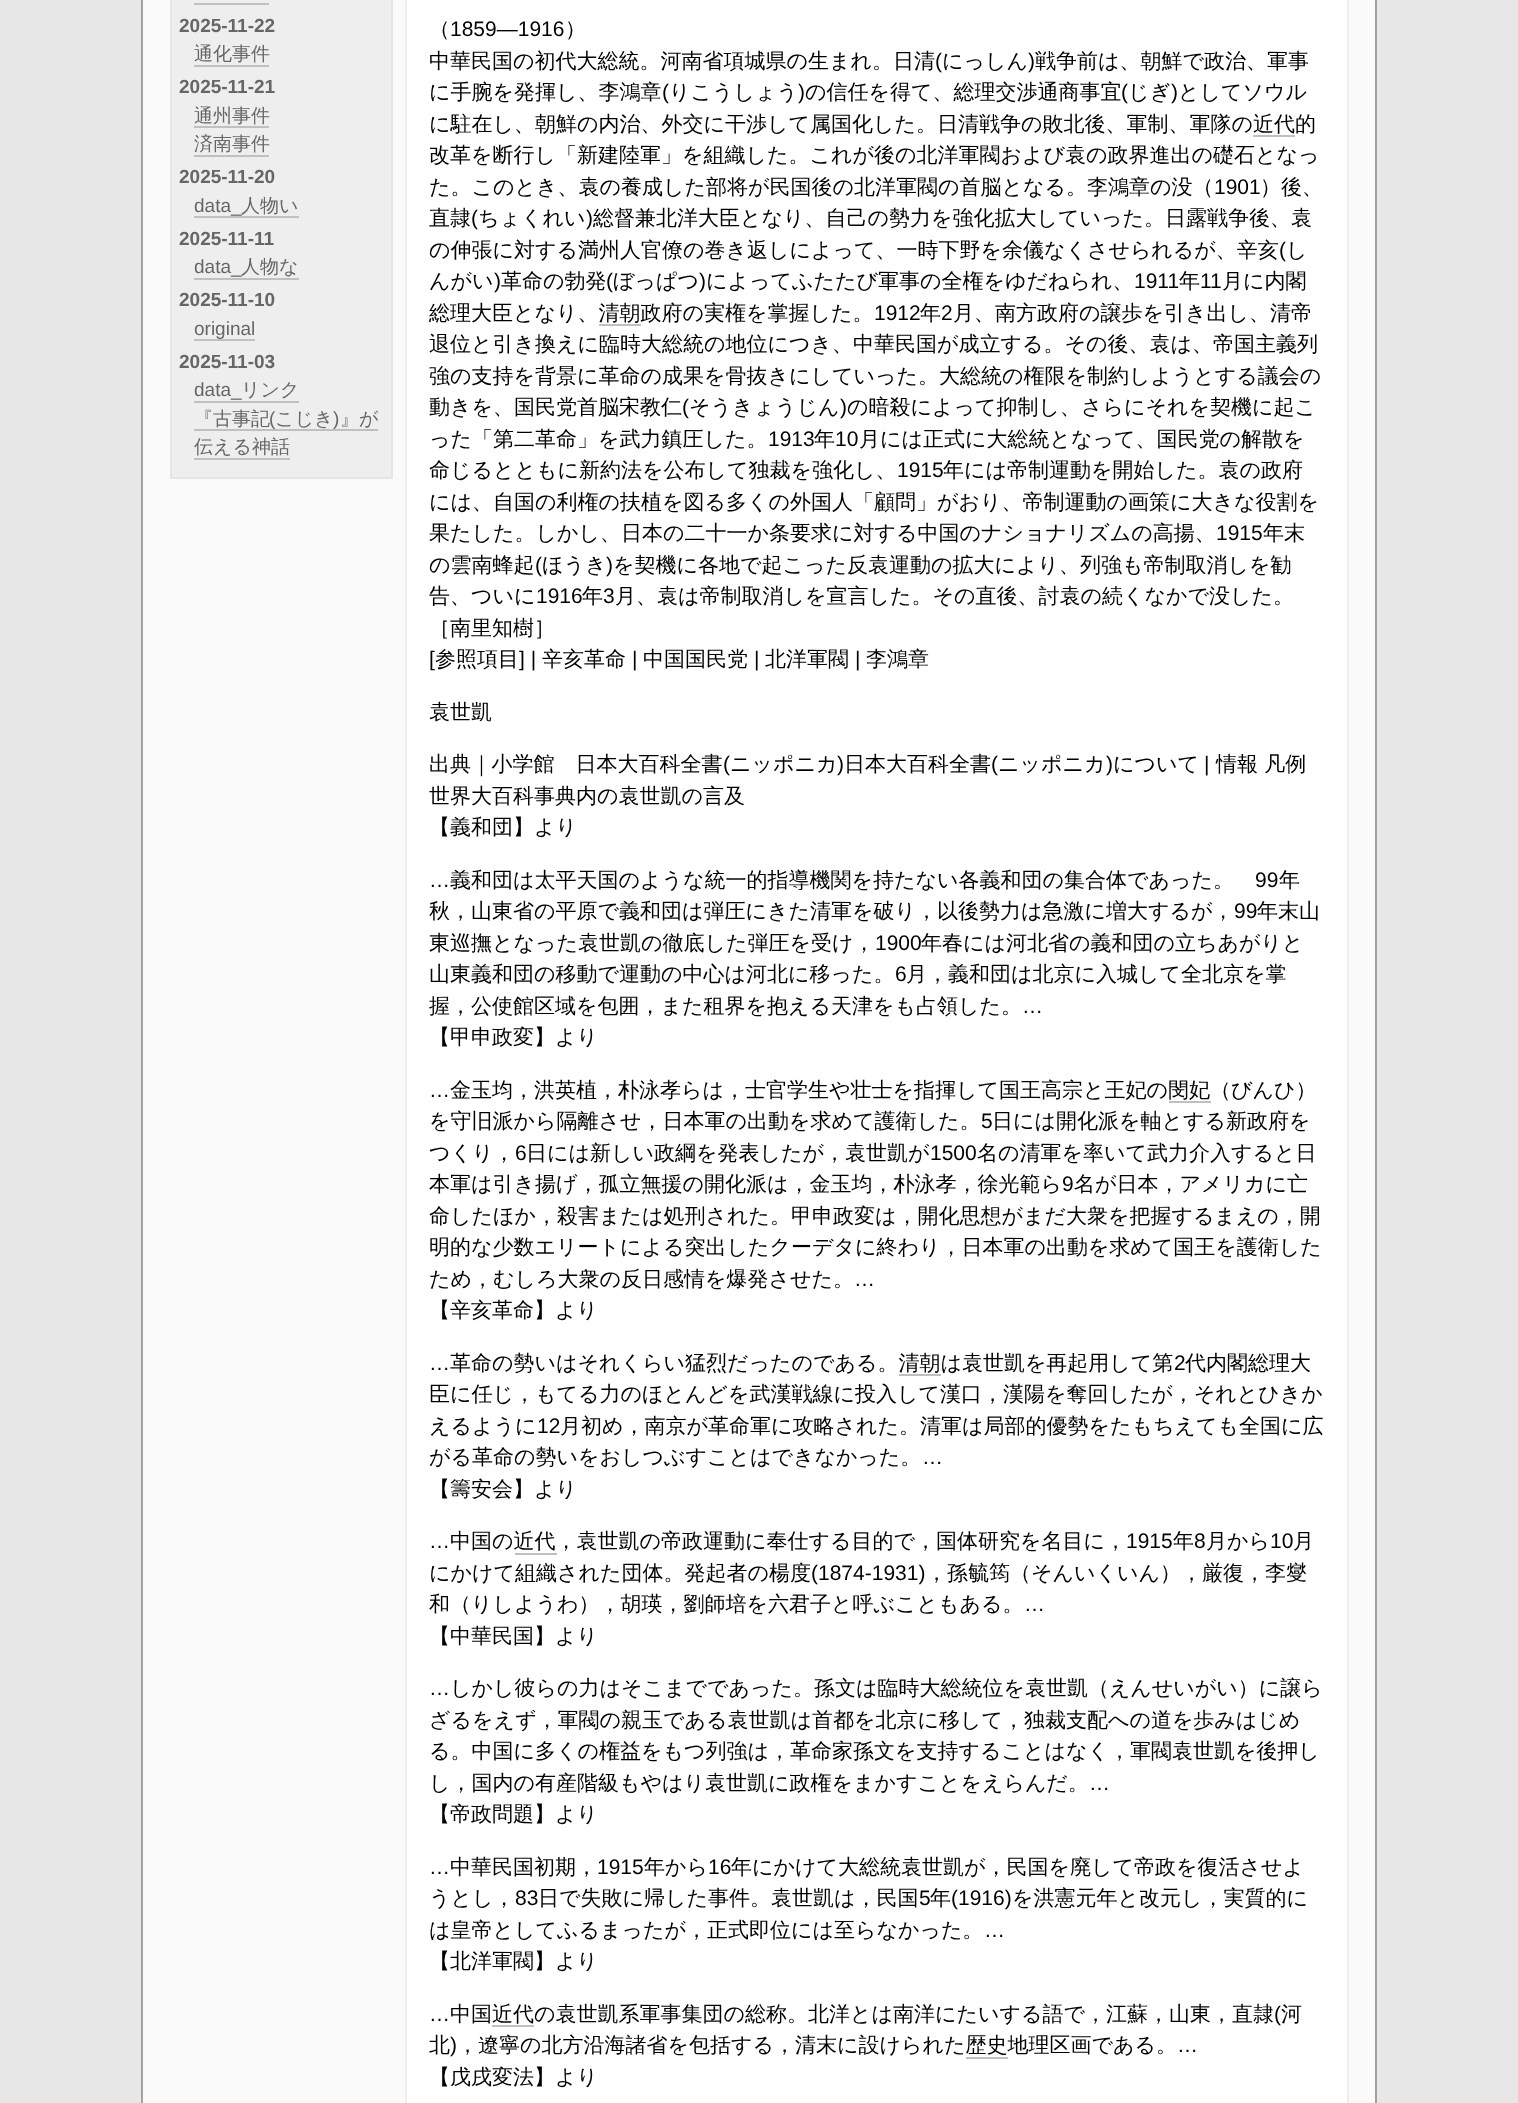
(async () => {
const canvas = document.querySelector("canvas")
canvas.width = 1518
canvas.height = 2103
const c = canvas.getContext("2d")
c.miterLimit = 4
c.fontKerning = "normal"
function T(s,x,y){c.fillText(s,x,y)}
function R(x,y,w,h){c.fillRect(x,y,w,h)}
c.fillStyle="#e7e7e7"
R(0,0,1518,2103)
c.fillStyle="#fafafa"
c.beginPath()
c.rect(142,-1,1234,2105)
c.fill()
c.strokeStyle="#a1a1a1"
c.lineWidth=2
c.stroke()
c.fillStyle="#eee"
c.beginPath()
c.rect(171,-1,221,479)
c.fill()
c.strokeStyle="#e5e5e5"
c.stroke()
c.fillStyle="#c0c0c0"
R(194,3,75,2)
c.font="bold 19px Liberation Sans"
c.fillStyle="#666"
T("2025-11-22",179,32)
c.font="500 19px WenQuanYi Zen Hei"
T("通化事件",194,60)
c.fillStyle="#c0c0c0"
R(194,65,75,2)
c.font="bold 19px Liberation Sans"
c.fillStyle="#666"
T("2025-11-21",179,93)
c.font="500 19px WenQuanYi Zen Hei"
T("通州事件",194,122)
c.fillStyle="#c0c0c0"
R(194,126,75,2)
c.fillStyle="#666"
T("済南事件",194,150)
c.fillStyle="#c0c0c0"
R(194,155,75,2)
c.font="bold 19px Liberation Sans"
c.fillStyle="#666"
T("2025-11-20",179,183)
c.font="19px Liberation Sans"
T("data_",194,212)
c.fillStyle="#c0c0c0"
R(194,216,105,2)
c.font="500 19px WenQuanYi Zen Hei"
c.fillStyle="#666"
T("人物い",241,212)
c.font="bold 19px Liberation Sans"
T("2025-11-11",179,245)
c.font="19px Liberation Sans"
T("data_",194,273)
c.fillStyle="#c0c0c0"
R(194,278,105,2)
c.font="500 19px WenQuanYi Zen Hei"
c.fillStyle="#666"
T("人物な",241,273)
c.font="bold 19px Liberation Sans"
T("2025-11-10",179,306)
c.font="19px Liberation Sans"
T("original",194,335)
c.fillStyle="#c0c0c0"
R(194,339,61,2)
c.font="bold 19px Liberation Sans"
c.fillStyle="#666"
T("2025-11-03",179,368)
c.font="19px Liberation Sans"
T("data_",194,396)
c.fillStyle="#c0c0c0"
R(194,401,105,2)
c.font="500 19px WenQuanYi Zen Hei"
c.fillStyle="#666"
T("リンク",241,396)
T("『古事記",194,425)
c.font="19px Liberation Sans"
T("(",269,425)
c.fillStyle="#c0c0c0"
R(194,429,184,2)
c.font="500 19px WenQuanYi Zen Hei"
c.fillStyle="#666"
T("こじき",275,425)
c.font="19px Liberation Sans"
T(")",333,425)
c.font="500 19px WenQuanYi Zen Hei"
T("』が",340,425)
T("伝える神話",194,453)
c.fillStyle="#c0c0c0"
R(194,458,96,2)
c.fillStyle="#fff"
c.beginPath()
c.rect(406,-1,942,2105)
c.fill()
c.strokeStyle="#eee"
c.stroke()
c.font="500 21px WenQuanYi Zen Hei"
c.fillStyle="#000"
T("（",429,36)
c.font="21px Liberation Sans"
T("1859―1916",450,36)
c.font="500 21px WenQuanYi Zen Hei"
T("）",565,36)
T("中華民国の初代大総統。河南省項城県の生まれ。日清",429,68)
c.font="21px Liberation Sans"
T("(",935,68)
c.font="500 21px WenQuanYi Zen Hei"
T("にっしん",942,68)
c.font="21px Liberation Sans"
T(")",1028,68)
c.font="500 21px WenQuanYi Zen Hei"
T("戦争前は、朝鮮で政治、軍事",1035,68)
T("に手腕を発揮し、李鴻章",429,99)
c.font="21px Liberation Sans"
T("(",662,99)
c.font="500 21px WenQuanYi Zen Hei"
T("りこうしょう",669,99)
c.font="21px Liberation Sans"
T(")",798,99)
c.font="500 21px WenQuanYi Zen Hei"
T("の信任を得て、総理交渉通商事宜",805,99)
c.font="21px Liberation Sans"
T("(",1121,99)
c.font="500 21px WenQuanYi Zen Hei"
T("じぎ",1128,99)
c.font="21px Liberation Sans"
T(")",1171,99)
c.font="500 21px WenQuanYi Zen Hei"
T("としてソウル",1178,99)
T("に駐在し、朝鮮の内治、外交に干渉して属国化した。日清戦争の敗北後、軍制、軍隊の近代的",429,131)
c.fillStyle="#c0c0c0"
R(1253,135,42,2)
c.fillStyle="#000"
T("改革を断行し「新建陸軍」を組織した。これが後の北洋軍閥および袁の政界進出の礎石となっ",429,162)
T("た。このとき、袁の養成した部将が民国後の北洋軍閥の首脳となる。李鴻章の没（",429,194)
c.font="21px Liberation Sans"
T("1901",1214,194)
c.font="500 21px WenQuanYi Zen Hei"
T("）後、",1260,194)
T("直隷",429,225)
c.font="21px Liberation Sans"
T("(",471,225)
c.font="500 21px WenQuanYi Zen Hei"
T("ちょくれい",478,225)
c.font="21px Liberation Sans"
T(")",586,225)
c.font="500 21px WenQuanYi Zen Hei"
T("総督兼北洋大臣となり、自己の勢力を強化拡大していった。日露戦争後、袁",593,225)
T("の伸張に対する満州人官僚の巻き返しによって、一時下野を余儀なくさせられるが、辛亥",429,257)
c.font="21px Liberation Sans"
T("(",1279,257)
c.font="500 21px WenQuanYi Zen Hei"
T("し",1286,257)
T("んがい",429,288)
c.font="21px Liberation Sans"
T(")",494,288)
c.font="500 21px WenQuanYi Zen Hei"
T("革命の勃発",501,288)
c.font="21px Liberation Sans"
T("(",606,288)
c.font="500 21px WenQuanYi Zen Hei"
T("ぼっぱつ",613,288)
c.font="21px Liberation Sans"
T(")",699,288)
c.font="500 21px WenQuanYi Zen Hei"
T("によってふたたび軍事の全権をゆだねられ、",706,288)
c.font="21px Liberation Sans"
T("1911",1134,288)
c.font="500 21px WenQuanYi Zen Hei"
T("年",1179,288)
c.font="21px Liberation Sans"
T("11",1200,288)
c.font="500 21px WenQuanYi Zen Hei"
T("月に内閣",1222,288)
T("総理大臣となり、清朝政府の実権を掌握した。",429,320)
c.font="21px Liberation Sans"
T("1912",874,320)
c.font="500 21px WenQuanYi Zen Hei"
T("年",920,320)
c.font="21px Liberation Sans"
T("2",941,320)
c.font="500 21px WenQuanYi Zen Hei"
T("月、南方政府の譲歩を引き出し、清帝",953,320)
c.fillStyle="#c0c0c0"
R(599,324,42,2)
c.fillStyle="#000"
T("退位と引き換えに臨時大総統の地位につき、中華民国が成立する。その後、袁は、帝国主義列",429,351)
T("強の支持を背景に革命の成果を骨抜きにしていった。大総統の権限を制約しようとする議会の",429,383)
T("動きを、国民党首脳宋教仁",429,414)
c.font="21px Liberation Sans"
T("(",682,414)
c.font="500 21px WenQuanYi Zen Hei"
T("そうきょうじん",689,414)
c.font="21px Liberation Sans"
T(")",840,414)
c.font="500 21px WenQuanYi Zen Hei"
T("の暗殺によって抑制し、さらにそれを契機に起こ",847,414)
T("った「第二革命」を武力鎮圧した。",429,446)
c.font="21px Liberation Sans"
T("1913",768,446)
c.font="500 21px WenQuanYi Zen Hei"
T("年",814,446)
c.font="21px Liberation Sans"
T("10",835,446)
c.font="500 21px WenQuanYi Zen Hei"
T("月には正式に大総統となって、国民党の解散を",859,446)
T("命じるとともに新約法を公布して独裁を強化し、",429,477)
c.font="21px Liberation Sans"
T("1915",897,477)
c.font="500 21px WenQuanYi Zen Hei"
T("年には帝制運動を開始した。袁の政府",943,477)
T("には、自国の利権の扶植を図る多くの外国人「顧問」がおり、帝制運動の画策に大きな役割を",429,509)
T("果たした。しかし、日本の二十一か条要求に対する中国のナショナリズムの高揚、",429,540)
c.font="21px Liberation Sans"
T("1915",1216,540)
c.font="500 21px WenQuanYi Zen Hei"
T("年末",1263,540)
T("の雲南蜂起",429,572)
c.font="21px Liberation Sans"
T("(",535,572)
c.font="500 21px WenQuanYi Zen Hei"
T("ほうき",542,572)
c.font="21px Liberation Sans"
T(")",606,572)
c.font="500 21px WenQuanYi Zen Hei"
T("を契機に各地で起こった反袁運動の拡大により、列強も帝制取消しを勧",613,572)
T("告、ついに",429,603)
c.font="21px Liberation Sans"
T("1916",536,603)
c.font="500 21px WenQuanYi Zen Hei"
T("年",582,603)
c.font="21px Liberation Sans"
T("3",603,603)
c.font="500 21px WenQuanYi Zen Hei"
T("月、袁は帝制取消しを宣言した。その直後、討袁の続くなかで没した。",615,603)
T("［南里知樹］",429,635)
c.font="21px Liberation Sans"
T("[",429,666)
c.font="500 21px WenQuanYi Zen Hei"
T("参照項目",435,666)
c.font="21px Liberation Sans"
T("] |",519,666)
c.font="500 21px WenQuanYi Zen Hei"
T("辛亥革命",542,666)
c.font="21px Liberation Sans"
T("|",632,666)
c.font="500 21px WenQuanYi Zen Hei"
T("中国国民党",643,666)
c.font="21px Liberation Sans"
T("|",754,666)
c.font="500 21px WenQuanYi Zen Hei"
T("北洋軍閥",765,666)
c.font="21px Liberation Sans"
T("|",855,666)
c.font="500 21px WenQuanYi Zen Hei"
T("李鴻章",866,666)
T("袁世凱",429,719)
T("出典｜小学館　日本大百科全書",429,771)
c.font="21px Liberation Sans"
T("(",723,771)
c.font="500 21px WenQuanYi Zen Hei"
T("ニッポニカ",730,771)
c.font="21px Liberation Sans"
T(")",837,771)
c.font="500 21px WenQuanYi Zen Hei"
T("日本大百科全書",844,771)
c.font="21px Liberation Sans"
T("(",991,771)
c.font="500 21px WenQuanYi Zen Hei"
T("ニッポニカ",998,771)
c.font="21px Liberation Sans"
T(")",1106,771)
c.font="500 21px WenQuanYi Zen Hei"
T("について",1113,771)
c.font="21px Liberation Sans"
T("|",1204,771)
c.font="500 21px WenQuanYi Zen Hei"
T("情報 凡例",1216,771)
T("世界大百科事典内の袁世凱の言及",429,803)
T("【義和団】より",429,834)
c.font="21px Liberation Sans"
T("…",429,887)
c.font="500 21px WenQuanYi Zen Hei"
T("義和団は太平天国のような統一的指導機関を持たない各義和団の集合体であった。",450,887)
c.font="21px Liberation Sans"
T("99",1255,887)
c.font="500 21px WenQuanYi Zen Hei"
T("年",1279,887)
T("秋，山東省の平原で義和団は弾圧にきた清軍を破り，以後勢力は急激に増大するが，",429,918)
c.font="21px Liberation Sans"
T("99",1234,918)
c.font="500 21px WenQuanYi Zen Hei"
T("年末山",1257,918)
T("東巡撫となった袁世凱の徹底した弾圧を受け，",429,950)
c.font="21px Liberation Sans"
T("1900",875,950)
c.font="500 21px WenQuanYi Zen Hei"
T("年春には河北省の義和団の立ちあがりと",921,950)
T("山東義和団の移動で運動の中心は河北に移った。",429,981)
c.font="21px Liberation Sans"
T("6",895,981)
c.font="500 21px WenQuanYi Zen Hei"
T("月，義和団は北京に入城して全北京を掌",906,981)
T("握，公使館区域を包囲，また租界を抱える天津をも占領した。",429,1013)
c.font="21px Liberation Sans"
T("…",1022,1013)
c.font="500 21px WenQuanYi Zen Hei"
T("【甲申政変】より",429,1044)
c.font="21px Liberation Sans"
T("…",429,1097)
c.font="500 21px WenQuanYi Zen Hei"
T("金玉均，洪英植，朴泳孝らは，士官学生や壮士を指揮して国王高宗と王妃の閔妃（びんひ）",450,1097)
c.fillStyle="#c0c0c0"
R(1169,1101,42,2)
c.fillStyle="#000"
T("を守旧派から隔離させ，日本軍の出動を求めて護衛した。",429,1128)
c.font="21px Liberation Sans"
T("5",981,1128)
c.font="500 21px WenQuanYi Zen Hei"
T("日には開化派を軸とする新政府を",992,1128)
T("つくり，",429,1160)
c.font="21px Liberation Sans"
T("6",515,1160)
c.font="500 21px WenQuanYi Zen Hei"
T("日には新しい政綱を発表したが，袁世凱が",526,1160)
c.font="21px Liberation Sans"
T("1500",930,1160)
c.font="500 21px WenQuanYi Zen Hei"
T("名の清軍を率いて武力介入すると日",977,1160)
T("本軍は引き揚げ，孤立無援の開化派は，金玉均，朴泳孝，徐光範ら",429,1191)
c.font="21px Liberation Sans"
T("9",1062,1191)
c.font="500 21px WenQuanYi Zen Hei"
T("名が日本，アメリカに亡",1074,1191)
T("命したほか，殺害または処刑された。甲申政変は，開化思想がまだ大衆を把握するまえの，開",429,1223)
T("明的な少数エリートによる突出したクーデタに終わり，日本軍の出動を求めて国王を護衛した",429,1254)
T("ため，むしろ大衆の反日感情を爆発させた。",429,1286)
c.font="21px Liberation Sans"
T("…",854,1286)
c.font="500 21px WenQuanYi Zen Hei"
T("【辛亥革命】より",429,1317)
c.font="21px Liberation Sans"
T("…",429,1370)
c.font="500 21px WenQuanYi Zen Hei"
T("革命の勢いはそれくらい猛烈だったのである。清朝は袁世凱を再起用して第",450,1370)
c.font="21px Liberation Sans"
T("2",1174,1370)
c.font="500 21px WenQuanYi Zen Hei"
T("代内閣総理大",1185,1370)
c.fillStyle="#c0c0c0"
R(899,1374,42,2)
c.fillStyle="#000"
T("臣に任じ，もてる力のほとんどを武漢戦線に投入して漢口，漢陽を奪回したが，それとひきか",429,1401)
T("えるように",429,1433)
c.font="21px Liberation Sans"
T("12",537,1433)
c.font="500 21px WenQuanYi Zen Hei"
T("月初め，南京が革命軍に攻略された。清軍は局部的優勢をたもちえても全国に広",560,1433)
T("がる革命の勢いをおしつぶすことはできなかった。",429,1464)
c.font="21px Liberation Sans"
T("…",922,1464)
c.font="500 21px WenQuanYi Zen Hei"
T("【籌安会】より",429,1496)
c.font="21px Liberation Sans"
T("…",429,1548)
c.font="500 21px WenQuanYi Zen Hei"
T("中国の近代，袁世凱の帝政運動に奉仕する目的で，国体研究を名目に，",450,1548)
c.font="21px Liberation Sans"
T("1915",1126,1548)
c.font="500 21px WenQuanYi Zen Hei"
T("年",1173,1548)
c.font="21px Liberation Sans"
T("8",1194,1548)
c.font="500 21px WenQuanYi Zen Hei"
T("月から",1206,1548)
c.font="21px Liberation Sans"
T("10",1270,1548)
c.font="500 21px WenQuanYi Zen Hei"
T("月",1293,1548)
c.fillStyle="#c0c0c0"
R(515,1553,42,2)
c.fillStyle="#000"
T("にかけて組織された団体。発起者の楊度",429,1580)
c.font="21px Liberation Sans"
T("(1874‐1931)",811,1580)
c.font="500 21px WenQuanYi Zen Hei"
T("，孫毓筠（そんいくいん），厳復，李燮",926,1580)
T("和（りしようわ），胡瑛，劉師培を六君子と呼ぶこともある。",429,1611)
c.font="21px Liberation Sans"
T("…",1024,1611)
c.font="500 21px WenQuanYi Zen Hei"
T("【中華民国】より",429,1643)
c.font="21px Liberation Sans"
T("…",429,1695)
c.font="500 21px WenQuanYi Zen Hei"
T("しかし彼らの力はそこまでであった。孫文は臨時大総統位を袁世凱（えんせいがい）に譲ら",450,1695)
T("ざるをえず，軍閥の親玉である袁世凱は首都を北京に移して，独裁支配への道を歩みはじめ",429,1727)
T("る。中国に多くの権益をもつ列強は，革命家孫文を支持することはなく，軍閥袁世凱を後押し",429,1758)
T("し，国内の有産階級もやはり袁世凱に政権をまかすことをえらんだ。",429,1790)
c.font="21px Liberation Sans"
T("…",1089,1790)
c.font="500 21px WenQuanYi Zen Hei"
T("【帝政問題】より",429,1821)
c.font="21px Liberation Sans"
T("…",429,1874)
c.font="500 21px WenQuanYi Zen Hei"
T("中華民国初期，",450,1874)
c.font="21px Liberation Sans"
T("1915",597,1874)
c.font="500 21px WenQuanYi Zen Hei"
T("年から",644,1874)
c.font="21px Liberation Sans"
T("16",708,1874)
c.font="500 21px WenQuanYi Zen Hei"
T("年にかけて大総統袁世凱が，民国を廃して帝政を復活させよ",731,1874)
T("うとし，",429,1905)
c.font="21px Liberation Sans"
T("83",515,1905)
c.font="500 21px WenQuanYi Zen Hei"
T("日で失敗に帰した事件。袁世凱は，民国",538,1905)
c.font="21px Liberation Sans"
T("5",919,1905)
c.font="500 21px WenQuanYi Zen Hei"
T("年",930,1905)
c.font="21px Liberation Sans"
T("(1916)",951,1905)
c.font="500 21px WenQuanYi Zen Hei"
T("を洪憲元年と改元し，実質的に",1012,1905)
T("は皇帝としてふるまったが，正式即位には至らなかった。",429,1937)
c.font="21px Liberation Sans"
T("…",984,1937)
c.font="500 21px WenQuanYi Zen Hei"
T("【北洋軍閥】より",429,1968)
c.font="21px Liberation Sans"
T("…",429,2021)
c.font="500 21px WenQuanYi Zen Hei"
T("中国近代の袁世凱系軍事集団の総称。北洋とは南洋にたいする語で，江蘇，山東，直隷",450,2021)
c.font="21px Liberation Sans"
T("(",1274,2021)
c.font="500 21px WenQuanYi Zen Hei"
T("河",1281,2021)
c.fillStyle="#c0c0c0"
R(492,2025,42,2)
c.fillStyle="#000"
T("北",429,2052)
c.font="21px Liberation Sans"
T(")",450,2052)
c.font="500 21px WenQuanYi Zen Hei"
T("，遼寧の北方沿海諸省を包括する，清末に設けられた歴史地理区画である。",457,2052)
c.font="21px Liberation Sans"
T("…",1177,2052)
c.fillStyle="#c0c0c0"
R(966,2057,42,2)
c.font="500 21px WenQuanYi Zen Hei"
c.fillStyle="#000"
T("【戊戌変法】より",429,2084)
})()
